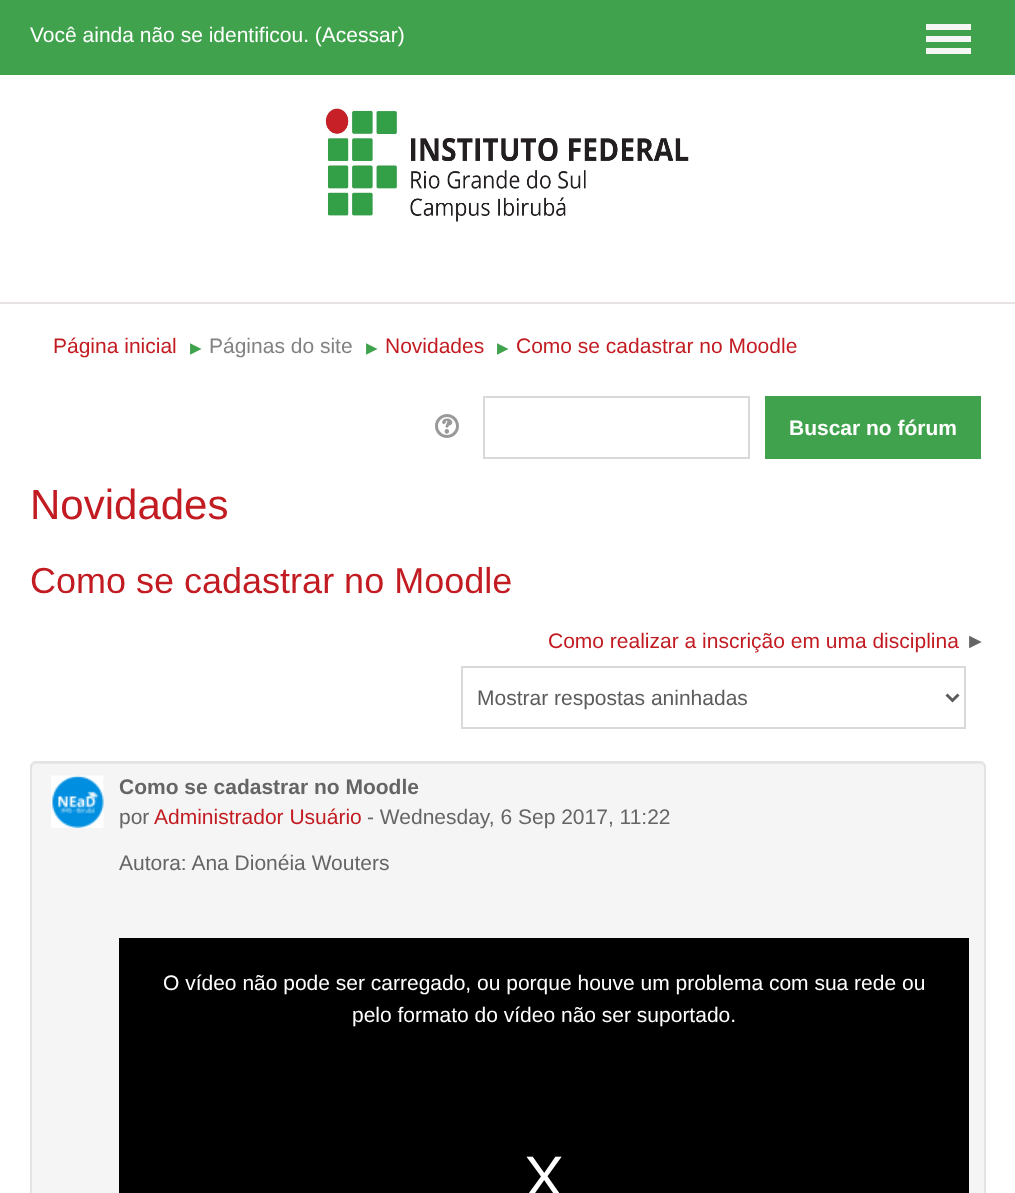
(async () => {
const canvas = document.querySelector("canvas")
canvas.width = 1015
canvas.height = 1193
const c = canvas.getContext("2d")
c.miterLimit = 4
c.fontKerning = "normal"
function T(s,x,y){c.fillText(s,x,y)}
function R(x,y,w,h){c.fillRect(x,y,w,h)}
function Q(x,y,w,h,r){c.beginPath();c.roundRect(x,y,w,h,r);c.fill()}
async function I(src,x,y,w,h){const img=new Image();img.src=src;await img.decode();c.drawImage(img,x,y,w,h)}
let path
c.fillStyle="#fff"
R(0,0,1015,1193)
c.fillStyle="#e8e3e3"
R(0,302,1015,2)
c.fillStyle="#41a24d"
R(0,0,1015,75)
c.font="21px Liberation Sans"
c.fillStyle="#fff"
T("Você ainda não se identificou. (Acessar)",30,42)
c.fillStyle="#f5f5f5"
R(926,24,45,6)
R(926,36,45,6)
R(926,48,45,6)
await I("1.png",325,108,364,114)
c.fillStyle="#c21c22"
T("Página inicial",53,353)
c.font="15px DejaVu Sans"
c.fillStyle="#41a24d"
T("▶︎",190,353)
c.font="21px Liberation Sans"
c.fillStyle="#828282"
T("Páginas do site",209,353)
c.font="15px DejaVu Sans"
c.fillStyle="#41a24d"
T("▶︎",366,353)
c.font="21px Liberation Sans"
c.fillStyle="#c21c22"
T("Novidades",385,353)
c.font="15px DejaVu Sans"
c.fillStyle="#41a24d"
T("▶︎",497,353)
c.font="21px Liberation Sans"
c.fillStyle="#c21c22"
T("Como se cadastrar no Moodle",516,353)
await I("2.png",435,414,24,24)
c.strokeStyle="#d9d9d9"
c.lineWidth=2
c.strokeRect(484,397,265,61)
c.fillStyle="#41a24d"
R(765,396,216,63)
c.font="bold 21px Liberation Sans"
c.fillStyle="#fff"
T("Buscar no fórum",789,435)
c.font="42px Liberation Sans"
c.fillStyle="#c21c22"
T("Novidades",30,519)
c.font="36px Liberation Sans"
T("Como se cadastrar no Moodle",30,593)
c.font="21px Liberation Sans"
T("Como realizar a inscrição em uma disciplina",548,648)
c.fillStyle="#656565"
T("►",965,648)
c.strokeRect(462,667,503,61)
path = new Path2D("M946.5 694.5l6 6l6-6")
c.strokeStyle="#5c5c5c"
c.lineWidth=3
c.stroke(path)
c.fillStyle="#5c5c5c"
T("Mostrar respostas aninhadas",477,705)
c.fillStyle="#f5f5f5"
Q(30,761,956,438,6)
c.fillStyle="#e9e9e9"
path = new Path2D("M36 764h944c2 0 4 2 4 4c0-3-2-6-5-6h-942c-3 0-5 3-5 6c0-2 2-4 4-4z")
c.fill(path)
c.beginPath()
c.roundRect(31,762,954,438,5)
c.strokeStyle="#e3e3e3"
c.lineWidth=2
c.stroke()
await I("3.png",51,775,53,53)
c.font="bold 21px Liberation Sans"
c.fillStyle="#656565"
T("Como se cadastrar no Moodle",119,794)
c.font="21px Liberation Sans"
T("por",119,824)
c.fillStyle="#c21c22"
T("Administrador Usuário",154,824)
c.fillStyle="#656565"
T("- Wednesday, 6 Sep 2017, 11:22",367,824)
T("Autora: Ana Dionéia Wouters",119,870)
c.fillStyle="#000"
R(119,938,850,255)
c.fillStyle="#fff"
T("O vídeo não pode ser carregado, ou porque houve um problema com sua rede ou",163,990)
T("pelo formato do vídeo não ser suportado.",352,1022)
c.font="60px Liberation Sans"
T("X",524,1198)
})()
